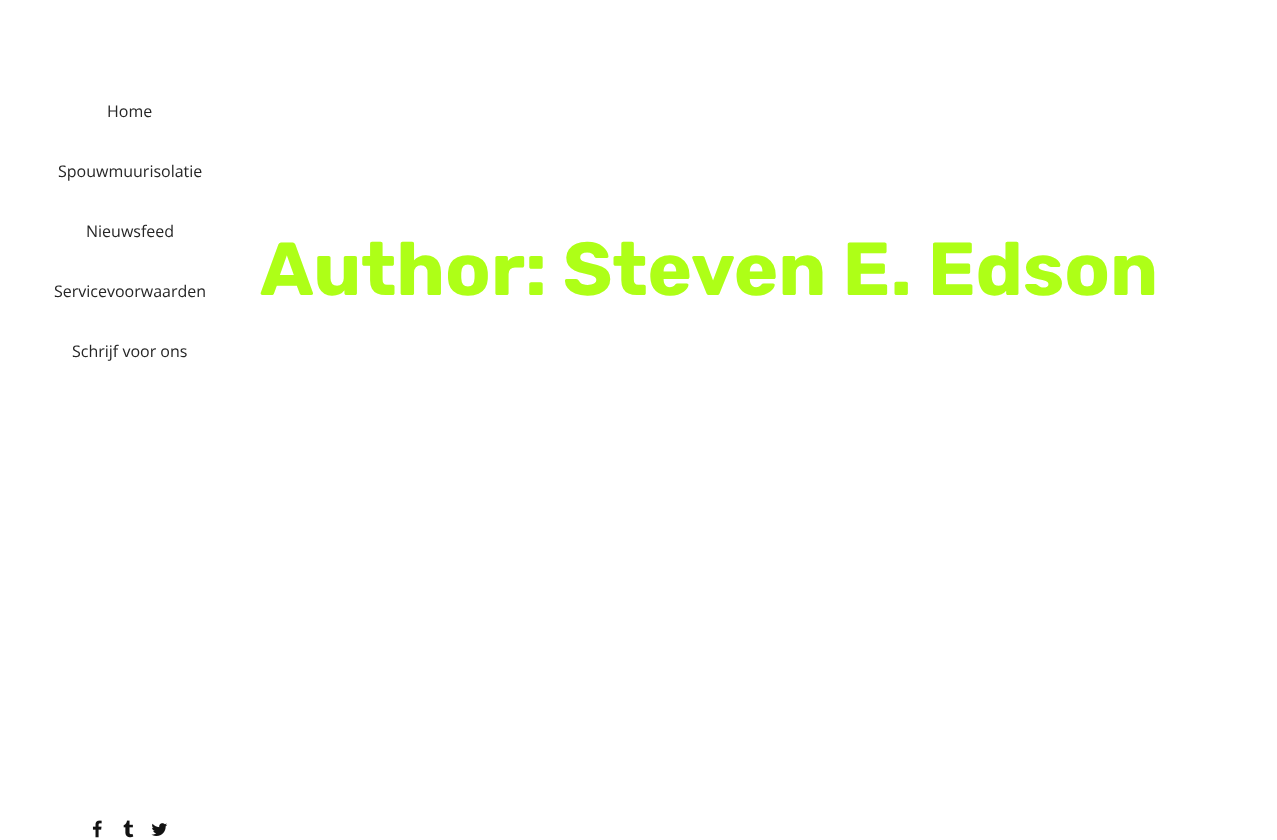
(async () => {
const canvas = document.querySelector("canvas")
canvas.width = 1277
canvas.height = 840
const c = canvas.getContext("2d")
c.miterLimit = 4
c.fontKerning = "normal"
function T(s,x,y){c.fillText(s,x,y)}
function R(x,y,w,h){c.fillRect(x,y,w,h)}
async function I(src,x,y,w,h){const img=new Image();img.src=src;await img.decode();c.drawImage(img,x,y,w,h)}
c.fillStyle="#fff"
R(0,0,1277,840)
c.font="16px Open Sans"
c.fillStyle="#262626"
T("Home",107,117)
T("Spouwmuurisolatie",58,177)
T("Nieuwsfeed",86,237)
T("Servicevoorwaarden",54,297)
T("Schrijf voor ons",72,357)
await I("1.png",92,820,10,18)
await I("2.png",123,820,11,18)
await I("3.png",151,823,17,13)
c.font="bold 75px Rubik"
c.fillStyle="#aeff17"
T("Author: Steven E. Edson",260,295)
})()
